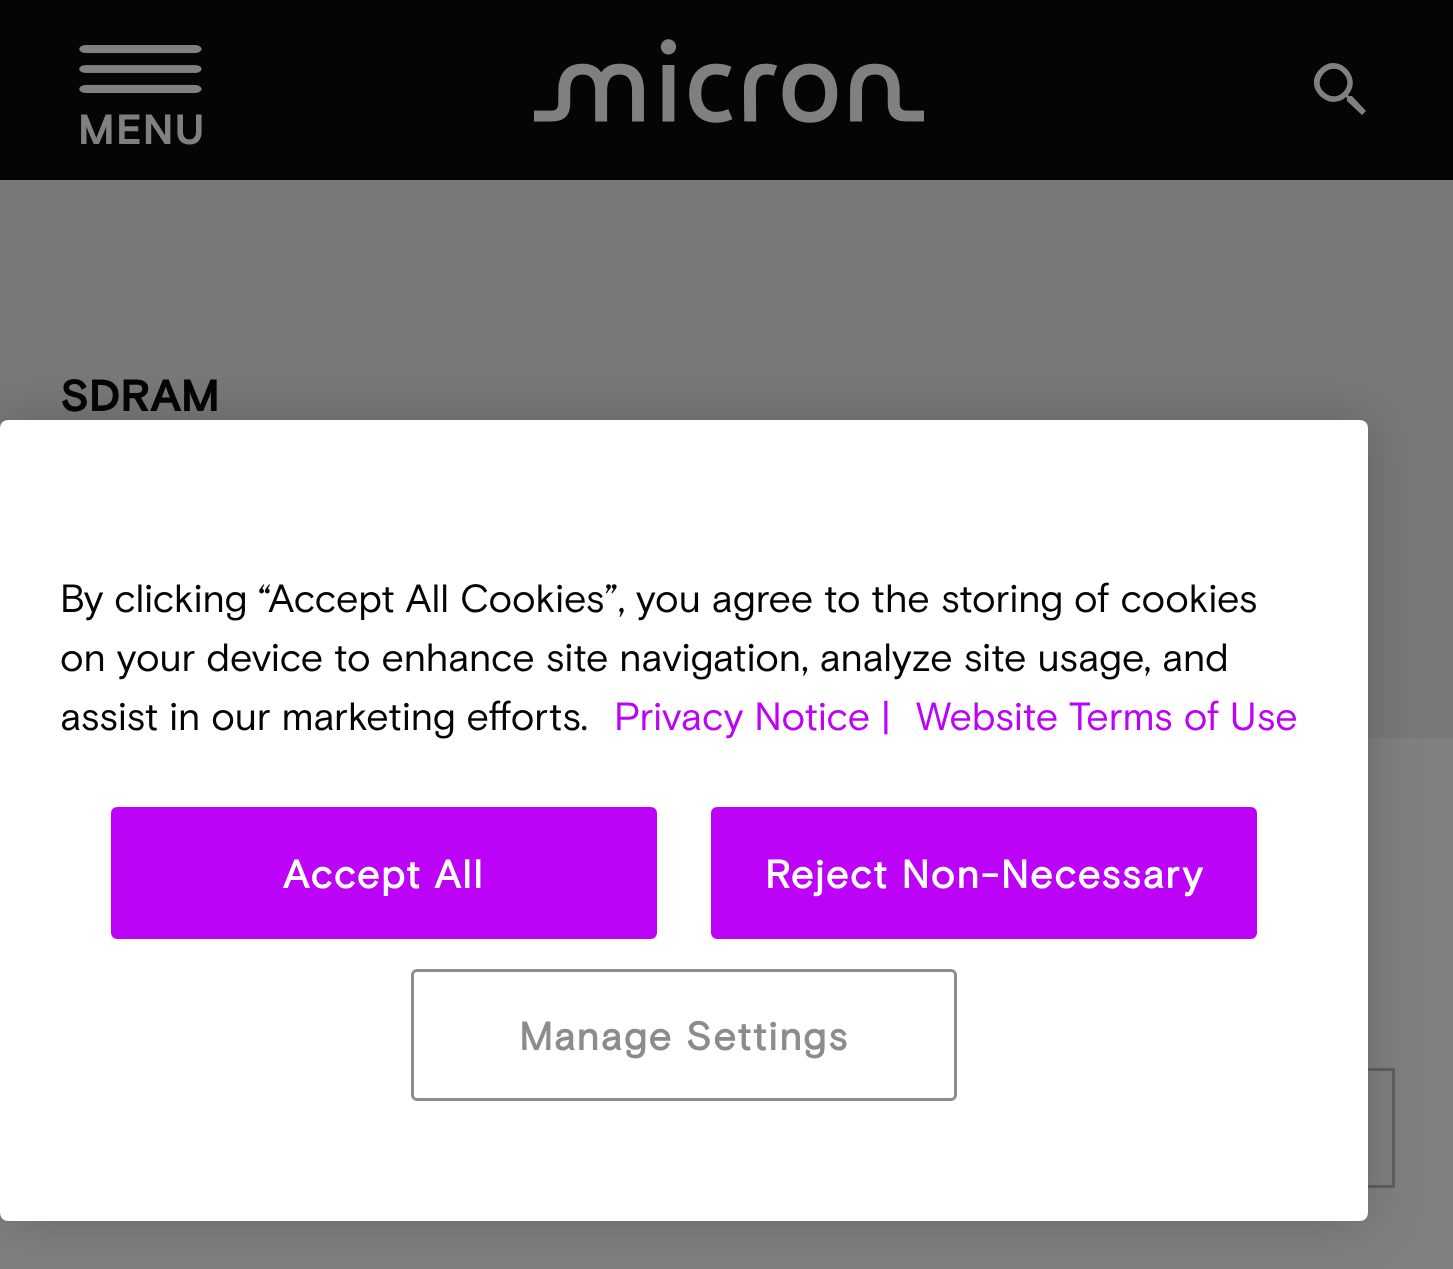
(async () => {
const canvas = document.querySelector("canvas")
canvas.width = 1453
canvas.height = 1269
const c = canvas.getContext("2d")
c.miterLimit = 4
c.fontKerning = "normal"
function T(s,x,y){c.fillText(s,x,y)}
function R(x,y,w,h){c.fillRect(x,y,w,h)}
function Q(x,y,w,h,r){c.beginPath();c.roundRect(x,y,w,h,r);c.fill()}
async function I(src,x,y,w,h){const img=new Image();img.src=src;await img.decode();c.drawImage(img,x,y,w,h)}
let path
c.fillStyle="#808080"
R(0,0,1453,1269)
c.fillStyle="#050505"
R(0,0,1453,180)
await I("1.png",534,39,390,84)
c.fillStyle="#808080"
path = new Path2D("M1324 92c13 13 32-6 19-19c-12-13-32 7-19 19zm28 4l14 15l-4 4l-15-14v-3l-1-1c-18 16-44-11-26-28c17-18 44 8 28 26l1 1z")
c.fill(path)
await I("2.png",79,45,123,48)
c.letterSpacing="1.5px"
c.font="bold 42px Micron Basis"
T("MENU",78,144)
c.fillStyle="#797979"
R(0,180,1453,558)
c.letterSpacing="0px"
c.font="bold 45px Micron Basis"
c.fillStyle="#050505"
T("SDRAM",60,411)
c.strokeStyle="#606060"
c.lineWidth=3
c.strokeRect(61.5,1069.5,1332,117)
c.fillStyle="#00000033"
c.filter="blur(27px)"
c.beginPath()
c.roundRect(0,420,1368,801,8)
c.fill()
c.filter="none"
c.fillStyle="#fff"
Q(0,420,1368,801,8)
c.font="39.35px Micron Basis"
c.fillStyle="#050505"
T("By clicking “Accept All Cookies”, you agree to the storing of cookies",60,612)
T("on your device to enhance site navigation, analyze site usage, and",60,671)
T("assist in our marketing efforts.",60,730)
c.fillStyle="#bd03f7"
T("Privacy Notice |",614,730)
T("Website Terms of Use",916,730)
c.beginPath()
c.roundRect(112.5,808.5,543,129,4.5)
c.fill()
c.strokeStyle="#bd03f7"
c.stroke()
c.letterSpacing="2px"
c.font="bold 39.35px 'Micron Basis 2'"
c.fillStyle="#fff"
T("Accept All",283,888)
c.fillStyle="#bd03f7"
c.beginPath()
c.roundRect(712.5,808.5,543,129,4.5)
c.fill()
c.stroke()
c.fillStyle="#fff"
T("Reject Non-Necessary",765,888)
c.beginPath()
c.roundRect(412.5,970.5,543,129,4.5)
c.strokeStyle="#8c8c8c"
c.stroke()
c.fillStyle="#8c8c8c"
T("Manage Settings",519,1050)
})()
